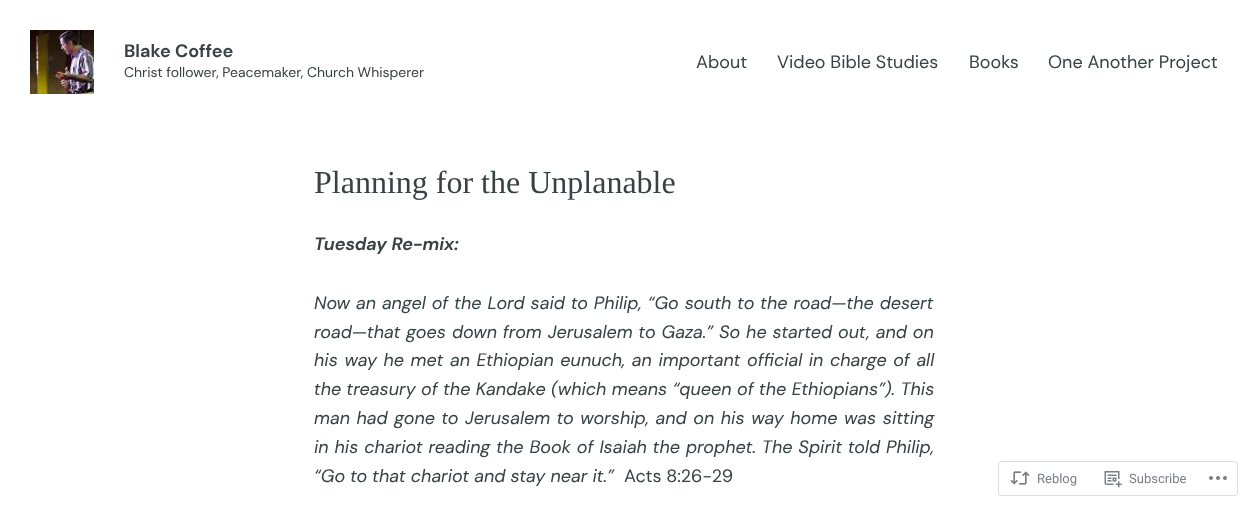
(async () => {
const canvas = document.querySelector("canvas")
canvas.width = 1248
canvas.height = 506
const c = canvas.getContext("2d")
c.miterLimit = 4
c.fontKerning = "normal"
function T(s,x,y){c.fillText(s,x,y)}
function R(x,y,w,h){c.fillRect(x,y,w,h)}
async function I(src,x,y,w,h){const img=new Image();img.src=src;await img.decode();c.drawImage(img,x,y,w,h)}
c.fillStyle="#fff"
R(0,0,1248,506)
await I("1.png",30,30,64,64)
c.font="bold 18px DM Sans"
c.fillStyle="#384143"
T("Blake Coffee",124,57)
c.font="14px DM Sans"
T("Christ follower, Peacemaker, Church Whisperer",124,77)
c.font="18px DM Sans"
T("About",696,68)
T("Video Bible Studies",777,68)
T("Books",969,68)
T("One Another Project",1048,68)
c.font="32px Liberation Serif"
T("Planning for the Unplanable",314,193)
c.font="italic bold 18px DM Sans"
T("Tuesday Re-mix:",314,250)
c.wordSpacing="0.8px"
c.font="italic 18px DM Sans"
T("Now an angel of the Lord said to Philip, “Go south to the road—the desert",314,309)
c.wordSpacing="0.75px"
T("road—that goes down from Jerusalem to Gaza.” So he started out, and on",314,338)
c.wordSpacing="1.4px"
T("his way he met an Ethiopian eunuch, an important official in charge of all",314,366)
c.wordSpacing="0.25px"
T("the treasury of the Kandake (which means “queen of the Ethiopians”). This",314,395)
c.wordSpacing="1.4px"
T("man had gone to Jerusalem to worship, and on his way home was sitting",314,424)
c.wordSpacing="0.75px"
T("in his chariot reading the Book of Isaiah the prophet. The Spirit told Philip,",314,453)
c.wordSpacing="0px"
T("“Go to that chariot and stay near it.”",314,482)
c.font="18px DM Sans"
T("Acts 8:26-29",624,482)
c.beginPath()
c.roundRect(998.5,461.5,239,34,2.5)
c.strokeStyle="#dddddf"
c.stroke()
await I("2.png",1010,471,20,14)
c.font="13px Roboto"
c.fillStyle="#7b7f85"
T("Reblog",1037,483)
await I("3.png",1104,471,18,17)
T("Subscribe",1129,483)
await I("4.png",1209,476,18,4)
})()
